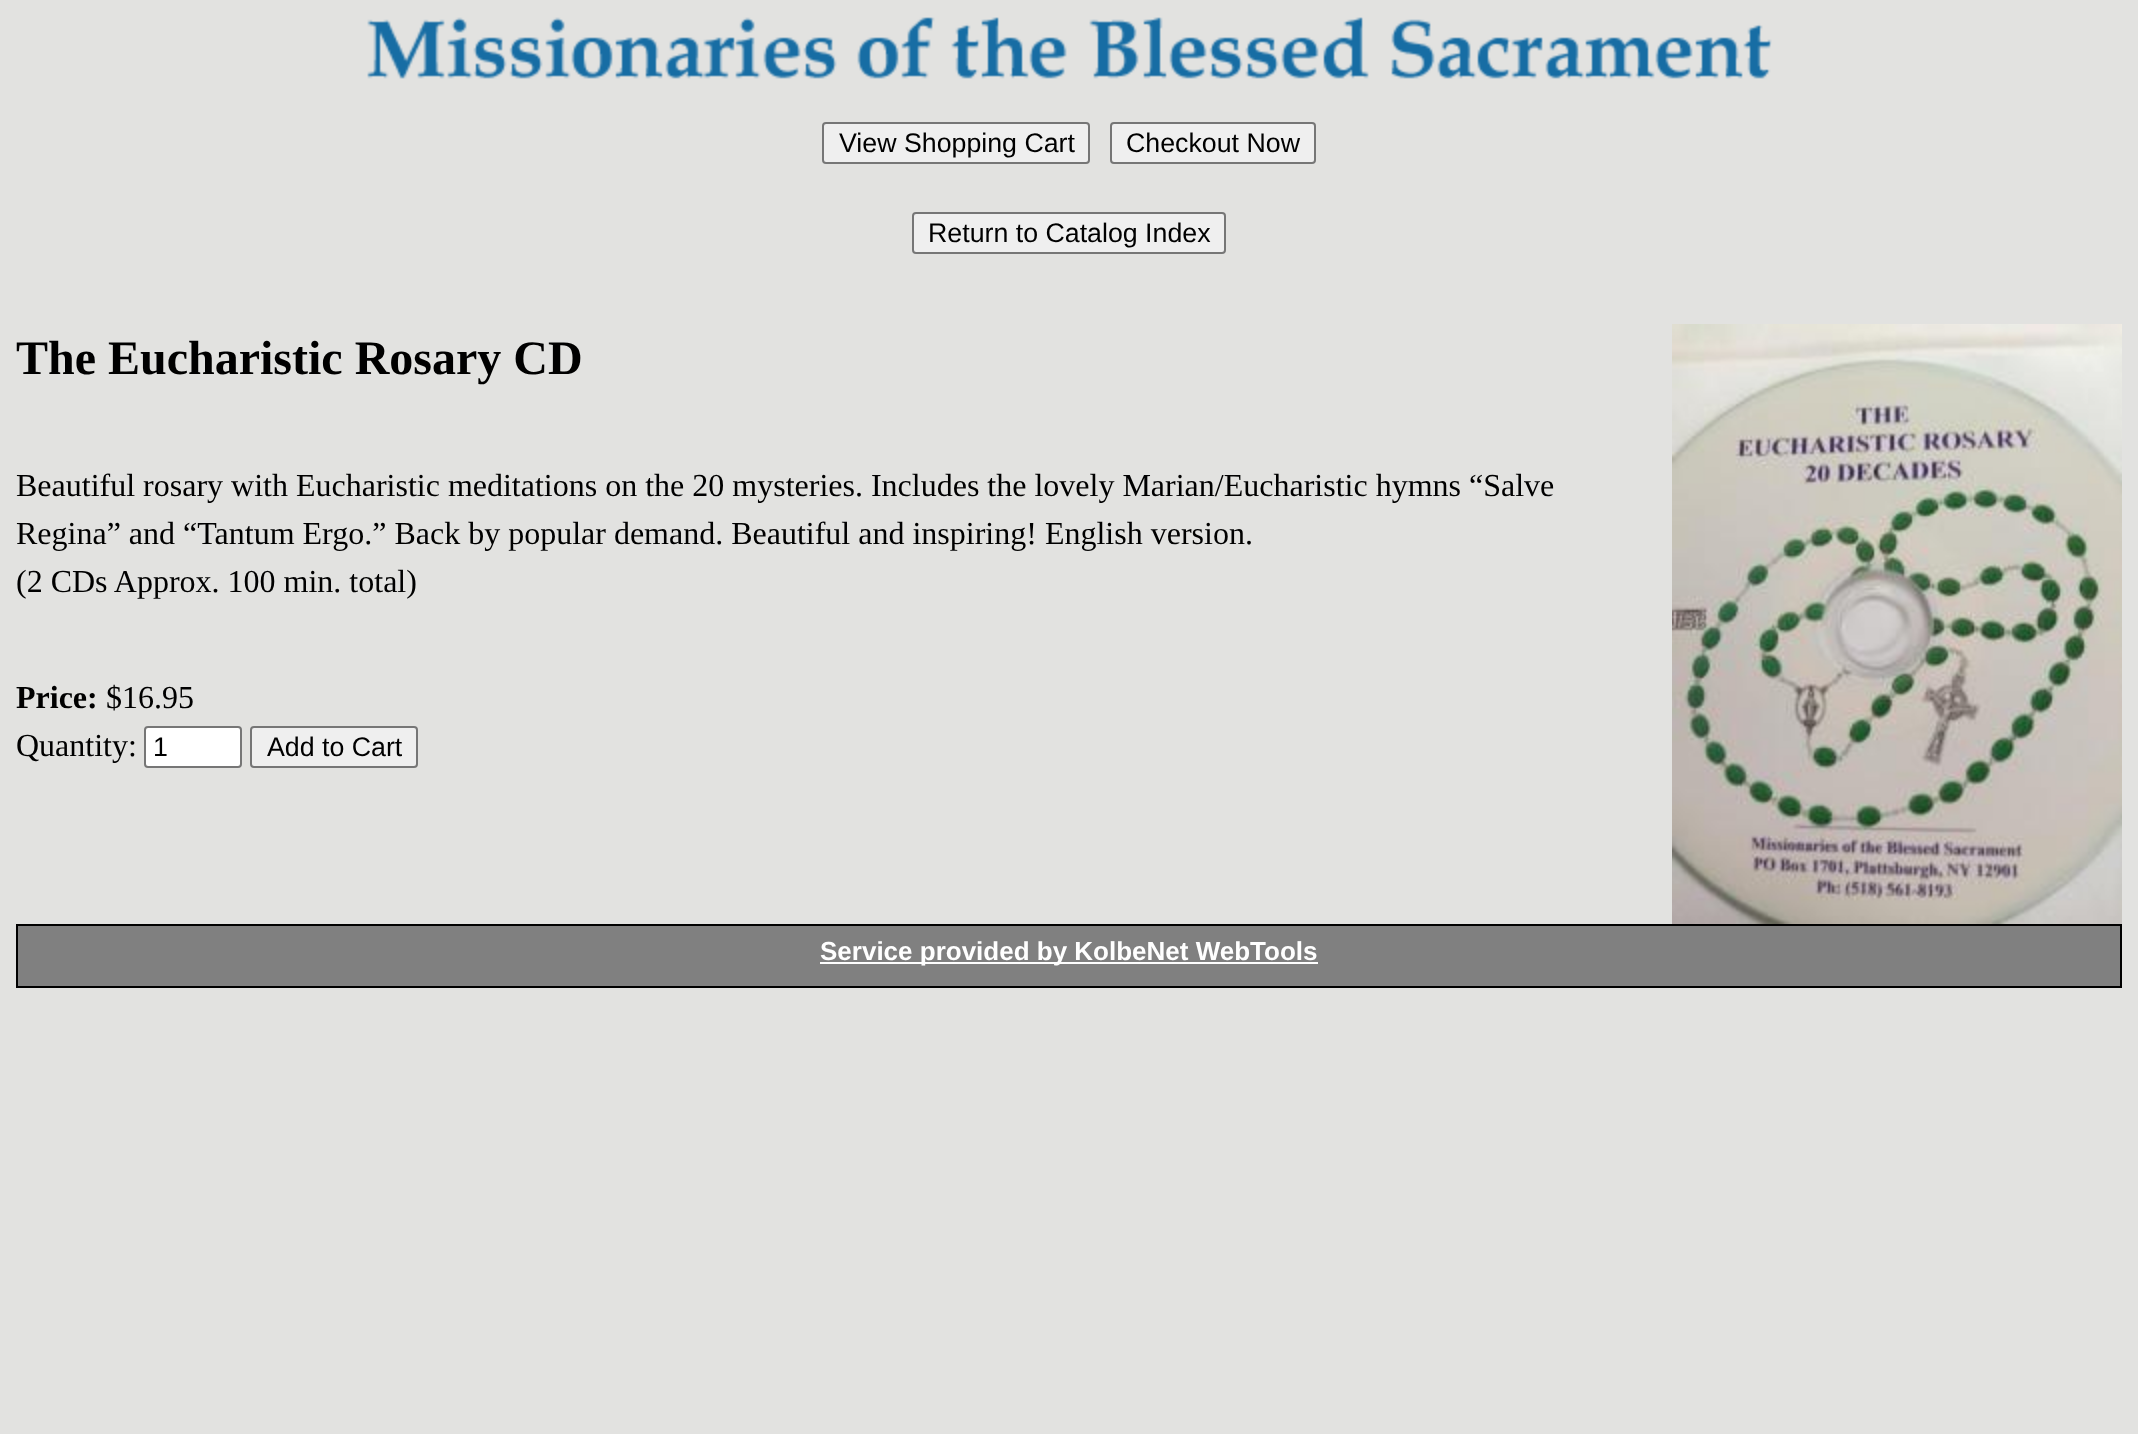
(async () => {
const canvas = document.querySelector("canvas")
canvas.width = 2138
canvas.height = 1434
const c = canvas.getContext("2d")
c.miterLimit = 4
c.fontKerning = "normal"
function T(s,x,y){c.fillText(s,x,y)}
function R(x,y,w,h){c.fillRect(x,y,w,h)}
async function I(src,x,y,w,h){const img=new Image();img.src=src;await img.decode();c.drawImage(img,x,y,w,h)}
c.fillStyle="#e2e2e0"
R(0,0,2138,1434)
await I("1.png",367,17,1405,62)
c.fillStyle="#efefef"
c.beginPath()
c.roundRect(823,123,266,40,3)
c.fill()
c.strokeStyle="#767676"
c.lineWidth=2
c.stroke()
c.font="26.75px Liberation Sans"
c.fillStyle="#000"
T("View Shopping Cart",839,152)
c.fillStyle="#efefef"
c.beginPath()
c.roundRect(1111,123,204,40,3)
c.fill()
c.stroke()
c.fillStyle="#000"
T("Checkout Now",1126,152)
c.fillStyle="#efefef"
c.beginPath()
c.roundRect(913,213,312,40,3)
c.fill()
c.stroke()
c.fillStyle="#000"
T("Return to Catalog Index",928,242)
c.font="bold 48px Liberation Serif"
T("The Eucharistic Rosary CD",16,374)
await I("2.png",1672,324,450,600)
c.font="32px Liberation Serif"
T("Beautiful rosary with Eucharistic meditations on the 20 mysteries. Includes the lovely Marian/Eucharistic hymns “Salve",16,496)
T("Regina” and “Tantum Ergo.” Back by popular demand. Beautiful and inspiring! English version.",16,544)
T("(2 CDs Approx. 100 min. total)",16,592)
c.font="bold 32px Liberation Serif"
T("Price:",16,708)
c.font="32px Liberation Serif"
T("$16.95",106,708)
T("Quantity:",16,756)
c.fillStyle="#fff"
c.beginPath()
c.roundRect(145,727,96,40,3)
c.fill()
c.stroke()
c.font="26.75px Liberation Sans"
c.fillStyle="#000"
T("1",153,756)
c.fillStyle="#efefef"
c.beginPath()
c.roundRect(251,727,166,40,3)
c.fill()
c.stroke()
c.fillStyle="#000"
T("Add to Cart",267,756)
c.strokeStyle="#000"
c.strokeRect(17,925,2104,62)
c.fillStyle="#808080"
R(18,926,2102,60)
c.fillStyle="#fff"
R(820,962,498,2)
c.font="bold 26px Liberation Sans"
T("Service provided by KolbeNet WebTools",820,960)
})()
